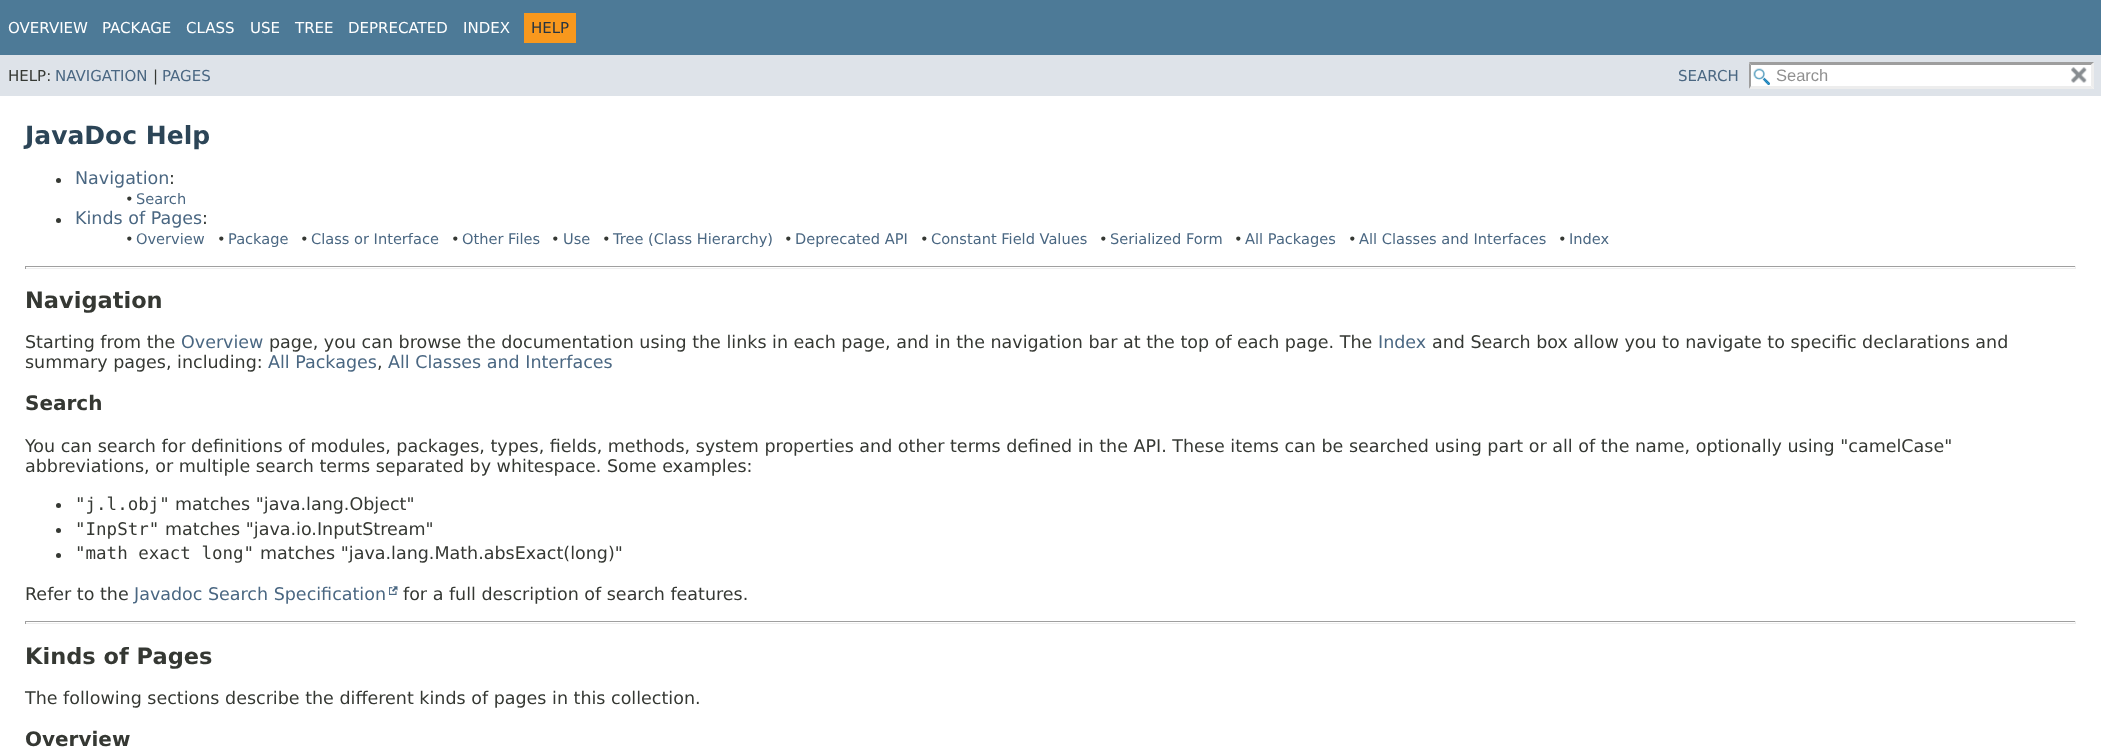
(async () => {
const canvas = document.querySelector("canvas")
canvas.width = 2101
canvas.height = 747
const c = canvas.getContext("2d")
c.miterLimit = 4
c.fontKerning = "normal"
function T(s,x,y){c.fillText(s,x,y)}
function R(x,y,w,h){c.fillRect(x,y,w,h)}
async function I(src,x,y,w,h){const img=new Image();img.src=src;await img.decode();c.drawImage(img,x,y,w,h)}
let path
c.fillStyle="#fff"
R(0,0,2101,747)
c.fillStyle="#4d7a97"
R(0,0,2101,55)
c.font="15px DejaVu Sans"
c.fillStyle="#fff"
T("OVERVIEW",8,33)
T("PACKAGE",102,33)
T("CLASS",186,33)
T("USE",250,33)
T("TREE",295,33)
T("DEPRECATED",348,33)
T("INDEX",463,33)
c.fillStyle="#f8981d"
R(524,13,52,30)
c.fillStyle="#253441"
T("HELP",531,33)
c.fillStyle="#dee3e9"
R(0,55,2101,41)
c.fillStyle="#353833"
T("HELP:",8,81)
c.fillStyle="#4a6782"
T("NAVIGATION",55,81)
c.fillStyle="#353833"
T("|",153,81)
c.fillStyle="#4a6782"
T("PAGES",162,81)
T("SEARCH",1678,81)
c.fillStyle="#fff"
R(1749,63,345,26)
await I("1.png",1753,68,17,17)
c.fillStyle="#9e9e9e"
path = new Path2D("M1749 62h345l-3 3h-340z")
c.fill(path)
c.fillStyle="#ededed"
path = new Path2D("M2094 62.5v26.5l-3-3v-21z")
c.fill(path)
path = new Path2D("M2094 89h-345l2-3h340z")
c.fill(path)
c.fillStyle="#9e9e9e"
path = new Path2D("M1749 89v-26.5l2 2.5v21z")
c.fill(path)
c.font="16.5px Liberation Sans"
c.fillStyle="#909090"
T("Search",1776,81)
await I("2.png",2071,67,16,16)
c.font="bold 25px DejaVu Sans"
c.fillStyle="#2c4557"
T("JavaDoc Help",25,144)
c.fillStyle="#353833"
c.beginPath()
c.arc(58.5,180.5,2.5,0,7)
c.fill()
c.font="17.5px DejaVu Sans"
c.fillStyle="#4a6782"
T("Navigation",75,184)
c.fillStyle="#353833"
T(":",169,184)
c.font="14.6px DejaVu Sans"
T("•",125,204)
c.fillStyle="#4a6782"
T("Search",136,204)
c.fillStyle="#353833"
c.beginPath()
c.arc(58.5,220.5,2.5,0,7)
c.fill()
c.font="17.5px DejaVu Sans"
c.fillStyle="#4a6782"
T("Kinds of Pages",75,224)
c.fillStyle="#353833"
T(":",202,224)
c.font="14.6px DejaVu Sans"
T("•",125,244)
c.fillStyle="#4a6782"
T("Overview",136,244)
c.fillStyle="#353833"
T("•",217,244)
c.fillStyle="#4a6782"
T("Package",228,244)
c.fillStyle="#353833"
T("•",300,244)
c.fillStyle="#4a6782"
T("Class or Interface",311,244)
c.fillStyle="#353833"
T("•",451,244)
c.fillStyle="#4a6782"
T("Other Files",462,244)
c.fillStyle="#353833"
T("•",551,244)
c.fillStyle="#4a6782"
T("Use",563,244)
c.fillStyle="#353833"
T("•",602,244)
c.fillStyle="#4a6782"
T("Tree (Class Hierarchy)",613,244)
c.fillStyle="#353833"
T("•",784,244)
c.fillStyle="#4a6782"
T("Deprecated API",795,244)
c.fillStyle="#353833"
T("•",920,244)
c.fillStyle="#4a6782"
T("Constant Field Values",931,244)
c.fillStyle="#353833"
T("•",1099,244)
c.fillStyle="#4a6782"
T("Serialized Form",1110,244)
c.fillStyle="#353833"
T("•",1234,244)
c.fillStyle="#4a6782"
T("All Packages",1245,244)
c.fillStyle="#353833"
T("•",1348,244)
c.fillStyle="#4a6782"
T("All Classes and Interfaces",1359,244)
c.fillStyle="#353833"
T("•",1558,244)
c.fillStyle="#4a6782"
T("Index",1569,244)
c.fillStyle="#9f9f9f"
R(25,266,2051,1)
c.fillStyle="#eee"
R(2075,266,1,3)
R(25,268,2051,1)
c.fillStyle="#9f9f9f"
R(25,266,1,3)
c.font="bold 22.5px DejaVu Sans"
c.fillStyle="#353833"
T("Navigation",25,308)
c.font="17.5px DejaVu Sans"
T("Starting from the",25,348)
c.fillStyle="#4a6782"
T("Overview",181,348)
c.fillStyle="#353833"
T("page, you can browse the documentation using the links in each page, and in the navigation bar at the top of each page. The",269,348)
c.fillStyle="#4a6782"
T("Index",1378,348)
c.fillStyle="#353833"
T("and Search box allow you to navigate to specific declarations and",1432,348)
T("summary pages, including:",25,368)
c.fillStyle="#4a6782"
T("All Packages",268,368)
c.fillStyle="#353833"
T(",",377,368)
c.fillStyle="#4a6782"
T("All Classes and Interfaces",388,368)
c.font="bold 20px DejaVu Sans"
c.fillStyle="#353833"
T("Search",25,410)
c.font="17.5px DejaVu Sans"
T("You can search for definitions of modules, packages, types, fields, methods, system properties and other terms defined in the API. These items can be searched using part or all of the name, optionally using \"camelCase\"",25,452)
T("abbreviations, or multiple search terms separated by whitespace. Some examples:",25,472)
c.beginPath()
c.arc(58.5,505.5,2.5,0,7)
c.fill()
c.font="17.5px DejaVu Sans Mono"
T("\"j.l.obj\"",75,510)
c.font="17.5px DejaVu Sans"
T("matches \"java.lang.Object\"",175,510)
c.beginPath()
c.arc(58.5,530.5,2.5,0,7)
c.fill()
c.font="17.5px DejaVu Sans Mono"
T("\"InpStr\"",75,535)
c.font="17.5px DejaVu Sans"
T("matches \"java.io.InputStream\"",165,535)
c.beginPath()
c.arc(58.5,555.5,2.5,0,7)
c.fill()
c.font="17.5px DejaVu Sans Mono"
T("\"math exact long\"",75,559)
c.font="17.5px DejaVu Sans"
T("matches \"java.lang.Math.absExact(long)\"",260,559)
T("Refer to the",25,600)
c.fillStyle="#4a6782"
T("Javadoc Search Specification",134,600)
await I("3.png",389,586,9,9)
c.fillStyle="#353833"
T("for a full description of search features.",403,600)
c.fillStyle="#9f9f9f"
R(25,621,2051,1)
c.fillStyle="#eee"
R(2075,621,1,3)
R(25,623,2051,1)
c.fillStyle="#9f9f9f"
R(25,621,1,3)
c.font="bold 22.5px DejaVu Sans"
c.fillStyle="#353833"
T("Kinds of Pages",25,664)
c.font="17.5px DejaVu Sans"
T("The following sections describe the different kinds of pages in this collection.",25,704)
c.font="bold 20px DejaVu Sans"
T("Overview",25,746)
})()
